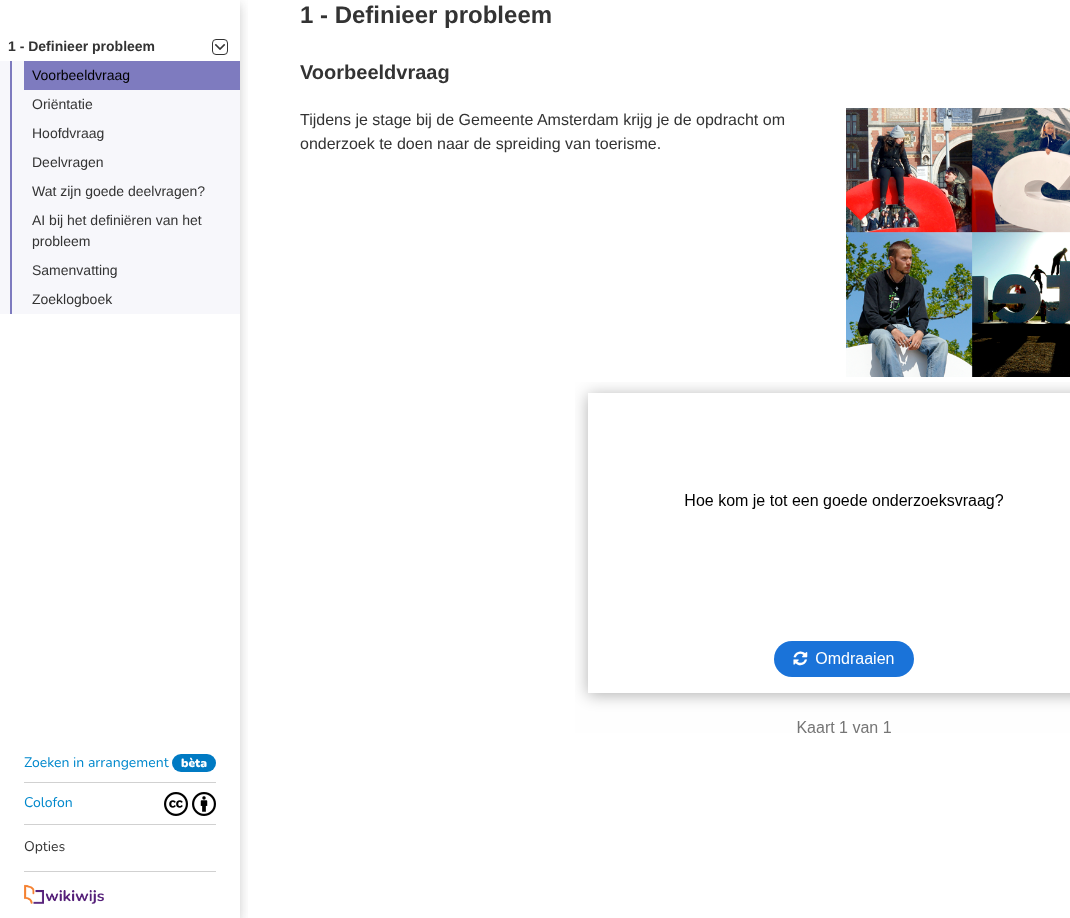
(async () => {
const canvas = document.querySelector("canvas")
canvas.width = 1070
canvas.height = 918
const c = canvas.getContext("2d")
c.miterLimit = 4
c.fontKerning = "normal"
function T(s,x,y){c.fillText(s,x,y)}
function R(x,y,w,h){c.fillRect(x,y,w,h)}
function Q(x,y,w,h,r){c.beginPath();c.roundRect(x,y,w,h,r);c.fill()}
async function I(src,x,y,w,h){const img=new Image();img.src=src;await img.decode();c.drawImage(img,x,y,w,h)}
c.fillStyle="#fff"
R(0,0,1070,918)
c.save()
c.beginPath()
c.rect(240,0,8,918)
c.clip()
c.fillStyle="#33333340"
c.filter="blur(6px)"
c.beginPath()
c.rect(0,4,240,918)
c.fill()
c.filter="none"
c.restore()
c.fillStyle="#f7f7fb"
R(0,61,240,253)
c.font="bold 14px Liberation Sans"
c.fillStyle="#333"
T("1 - Definieer probleem",8,51)
c.beginPath()
c.roundRect(212.5,39.5,15,15,3.5)
c.strokeStyle="#333"
c.stroke()
await I("1.png",214,44,12,6)
c.fillStyle="#7e7bbf"
R(10,61,2,253)
R(24,61,216,29)
c.font="14px Liberation Sans"
c.fillStyle="#000"
T("Voorbeeldvraag",32,80)
c.fillStyle="#333"
T("Oriëntatie",32,109)
T("Hoofdvraag",32,138)
T("Deelvragen",32,167)
T("Wat zijn goede deelvragen?",32,196)
T("AI bij het definiëren van het",32,225)
T("probleem",32,246)
T("Samenvatting",32,275)
T("Zoeklogboek",32,304)
c.fillStyle="#d1d1d1"
R(24,782,192,1)
c.font="14px Nunito"
c.fillStyle="#08c"
T("Zoeken in arrangement",24,767)
c.fillStyle="#007ac3"
Q(172,754,44,18,9)
c.font="900 12px Nunito"
c.fillStyle="#fff"
T("bèta",181,767)
c.fillStyle="#d1d1d1"
R(24,824,192,1)
c.font="14px Nunito"
c.fillStyle="#08c"
T("Colofon",24,807)
await I("2.png",164,792,24,24)
await I("3.png",192,792,24,24)
c.fillStyle="#d1d1d1"
R(24,871,192,1)
c.fillStyle="#333"
T("Opties",24,851)
await I("4.png",24,884,80,20)
c.font="bold 24px Liberation Sans"
T("1 - Definieer probleem",300,23)
c.font="bold 20px Liberation Sans"
T("Voorbeeldvraag",300,79)
c.font="16px Liberation Sans"
T("Tijdens je stage bij de Gemeente Amsterdam krijg je de opdracht om",300,125)
T("onderzoek te doen naar de spreiding van toerisme.",300,149)
await I("5.png",846,108,224,269)
await I("6.png",575,382,495,351)
})()
